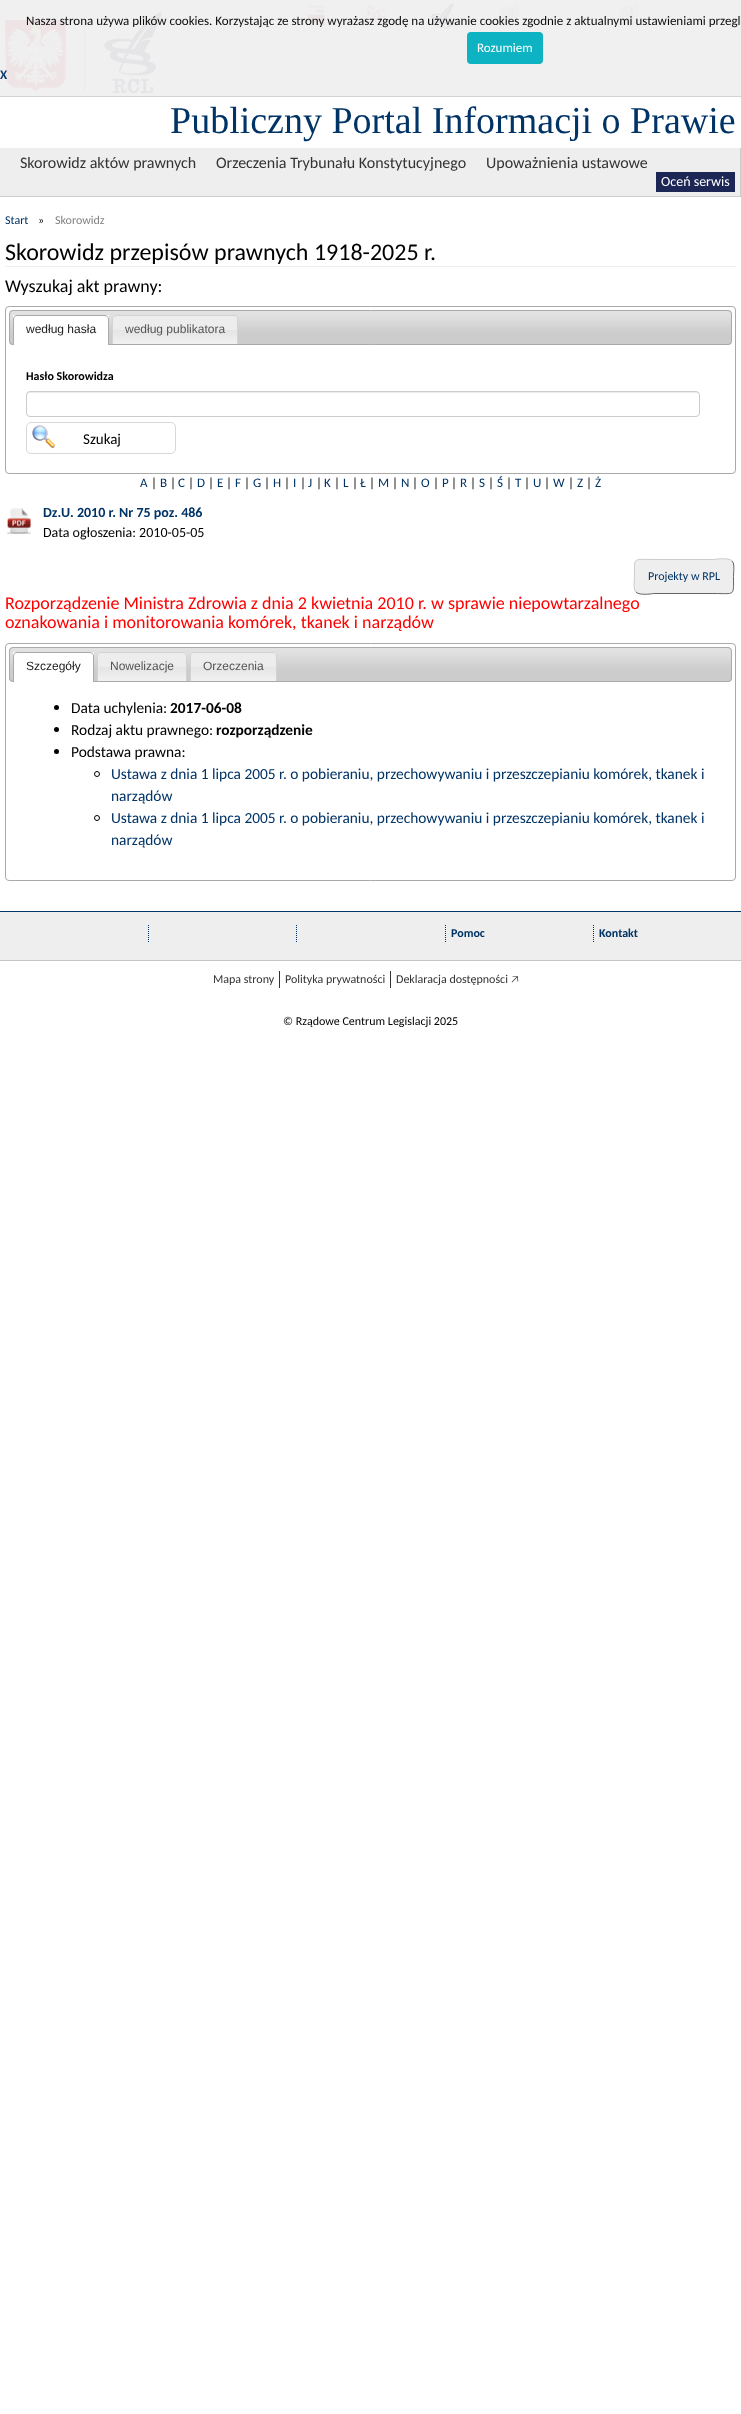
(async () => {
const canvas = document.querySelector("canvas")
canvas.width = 741
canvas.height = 2414
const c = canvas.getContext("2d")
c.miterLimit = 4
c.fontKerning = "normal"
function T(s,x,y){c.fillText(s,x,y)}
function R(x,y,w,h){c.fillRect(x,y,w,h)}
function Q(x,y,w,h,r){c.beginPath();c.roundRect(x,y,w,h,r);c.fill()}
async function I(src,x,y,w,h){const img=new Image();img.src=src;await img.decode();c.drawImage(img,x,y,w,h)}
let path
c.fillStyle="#fff"
R(0,0,741,2414)
c.fillStyle="#f0f0f0"
R(0,0,741,96)
c.fillStyle="#d5d2d2"
R(0,96,741,1)
c.fillStyle="#ebebeb"
R(84,20,1,72)
await I("1.png",5,20,61,72)
await I("2.png",104,12,58,82)
await I("3.png",307,5,19,21)
await I("4.png",367,5,20,22)
await I("5.png",430,3,24,26)
await I("6.png",499,4,21,25)
await I("7.png",619,4,21,25)
c.font="13px Carlito"
c.fillStyle="#0c0c0c"
T("Nasza strona używa plików cookies. Korzystając ze strony wyrażasz zgodę na używanie cookies zgodnie z aktualnymi ustawieniami przegl",26,25)
c.fillStyle="#0db3c2"
Q(467,32,76,32,4)
c.fillStyle="#fff"
T("Rozumiem",477,52)
c.font="bold 13px Carlito"
c.fillStyle="#0c3c6d"
T("X",0,79)
c.font="38px Liberation Serif"
c.fillStyle="#036"
T("Publiczny Portal Informacji o Prawie",170,133)
c.fillStyle="#eee"
R(0,148,740,48)
c.fillStyle="#ccc"
R(740,148,1,49)
R(0,196,741,1)
c.font="16px Carlito"
c.fillStyle="#333"
T("Skorowidz aktów prawnych",20,168)
T("Orzeczenia Trybunału Konstytucyjnego",216,168)
T("Upoważnienia ustawowe",486,168)
c.fillStyle="#1d2756"
R(656,172,79,20)
c.font="14px Carlito"
c.fillStyle="#fff"
T("Oceń serwis",661,186)
c.font="12px Carlito"
c.fillStyle="#036"
T("Start",5,224)
c.fillStyle="#000"
T("»",38,224)
c.fillStyle="#828282"
T("Skorowidz",55,224)
c.fillStyle="#eee"
R(5,266,731,1)
c.font="24px Carlito"
c.fillStyle="#000"
T("Skorowidz przepisów prawnych 1918-2025 r.",5,260)
c.font="18px Carlito"
T("Wyszukaj akt prawny:",5,292)
c.beginPath()
c.roundRect(5.5,306.5,730,167,3.5)
c.strokeStyle="#aaa"
c.stroke()
await I("8.png",9,310,723,35)
c.beginPath()
c.roundRect(9.5,310.5,722,34,3.5)
c.stroke()
c.fillStyle="#fff"
R(13,318,96,27)
c.fillStyle="#fefefe"
R(13,315,96,3)
c.fillStyle="#aaa"
path = new Path2D("M17 315h88c2 0 4 2 4 4v26h-96v-26c0-2 2-4 4-4zm0 1h88c2 0 3 1 3 3v26h-94v-26c0-2 1-3 3-3z")
c.fill(path,"evenodd")
c.font="12px Liberation Sans"
c.fillStyle="#212121"
T("według hasła",26,333)
await I("9.png",112,315,126,29)
c.fillStyle="#d3d3d3"
path = new Path2D("M116 315h118c2 0 4 2 4 4v25h-126v-25c0-2 2-4 4-4zm0 1h118c2 0 3 1 3 3v25h-124v-25c0-2 1-3 3-3z")
c.fill(path,"evenodd")
c.fillStyle="#555"
T("według publikatora",125,333)
c.font="bold 12px Carlito"
c.fillStyle="#000"
T("Hasło Skorowidza",26,380)
c.fillStyle="#ececec"
path = new Path2D("M30 393h666c2 0 3 1 3 3v-1c0-2-1-3-3-3h-666c-2 0-3 1-3 3v1c0-2 1-3 3-3z")
c.fill(path)
c.beginPath()
c.roundRect(26.5,391.5,673,25,3.5)
c.strokeStyle="#ccc"
c.stroke()
await I("10.png",32,425,23,24)
c.beginPath()
c.roundRect(26.5,422.5,149,31,4.5)
c.strokeStyle="#d8d8d8"
c.stroke()
c.font="15px Carlito"
c.fillStyle="#000"
T("Szukaj",83,444)
c.font="13px Carlito"
c.fillStyle="#036"
T("A",140,487)
c.fillStyle="#000"
T("|",151,487)
c.fillStyle="#036"
T("B",160,487)
c.fillStyle="#000"
T("|",170,487)
c.fillStyle="#036"
T("C",178,487)
c.fillStyle="#000"
T("|",188,487)
c.fillStyle="#036"
T("D",197,487)
c.fillStyle="#000"
T("|",208,487)
c.fillStyle="#036"
T("E",217,487)
c.fillStyle="#000"
T("|",226,487)
c.fillStyle="#036"
T("F",235,487)
c.fillStyle="#000"
T("|",244,487)
c.fillStyle="#036"
T("G",253,487)
c.fillStyle="#000"
T("|",264,487)
c.fillStyle="#036"
T("H",273,487)
c.fillStyle="#000"
T("|",284,487)
c.fillStyle="#036"
T("I",293,487)
c.fillStyle="#000"
T("|",300,487)
c.fillStyle="#036"
T("J",308,487)
c.fillStyle="#000"
T("|",316,487)
c.fillStyle="#036"
T("K",324,487)
c.fillStyle="#000"
T("|",334,487)
c.fillStyle="#036"
T("L",343,487)
c.fillStyle="#000"
T("|",352,487)
c.fillStyle="#036"
T("Ł",360,487)
c.fillStyle="#000"
T("|",369,487)
c.fillStyle="#036"
T("M",378,487)
c.fillStyle="#000"
T("|",392,487)
c.fillStyle="#036"
T("N",401,487)
c.fillStyle="#000"
T("|",412,487)
c.fillStyle="#036"
T("O",421,487)
c.fillStyle="#000"
T("|",433,487)
c.fillStyle="#036"
T("P",442,487)
c.fillStyle="#000"
T("|",451,487)
c.fillStyle="#036"
T("R",460,487)
c.fillStyle="#000"
T("|",470,487)
c.fillStyle="#036"
T("S",479,487)
c.fillStyle="#000"
T("|",488,487)
c.fillStyle="#036"
T("Ś",497,487)
c.fillStyle="#000"
T("|",506,487)
c.fillStyle="#036"
T("T",515,487)
c.fillStyle="#000"
T("|",524,487)
c.fillStyle="#036"
T("U",533,487)
c.fillStyle="#000"
T("|",544,487)
c.fillStyle="#036"
T("W",553,487)
c.fillStyle="#000"
T("|",568,487)
c.fillStyle="#036"
T("Z",577,487)
c.fillStyle="#000"
T("|",586,487)
c.fillStyle="#036"
T("Ż",595,487)
await I("11.png",7,508,24,27)
c.font="bold 14px Carlito"
T("Dz.U. 2010 r. Nr 75 poz. 486",43,517)
c.font="14px Carlito"
c.fillStyle="#000"
T("Data ogłoszenia: 2010-05-05",43,537)
c.fillStyle="#eee"
Q(634,559,100,35,5)
path = new Path2D("M732 561c3 2.5 1.5 12 1.5 15.5c0 20 2 17-19.5 17h-60c-.5 0-14.5 2.5-18-1.5")
c.strokeStyle="#666"
c.stroke(path)
path = new Path2D("M636 592c-3-2.5-1.5-12-1.5-15.5c0-20-2-17 19.5-17h60c.5 0 14.5-2.5 18 1.5")
c.strokeStyle="#ccc"
c.stroke(path)
c.font="12px Carlito"
c.fillStyle="#036"
T("Projekty w RPL",648,580)
c.font="18px Carlito"
c.fillStyle="#f00"
T("Rozporządzenie Ministra Zdrowia z dnia 2 kwietnia 2010 r. w sprawie niepowtarzalnego",5,609)
T("oznakowania i monitorowania komórek, tkanek i narządów",5,628)
c.beginPath()
c.roundRect(5.5,643.5,730,237,3.5)
c.strokeStyle="#aaa"
c.stroke()
await I("8.png",9,647,723,35)
c.beginPath()
c.roundRect(9.5,647.5,722,34,3.5)
c.stroke()
c.fillStyle="#fff"
R(13,655,81,27)
c.fillStyle="#fefefe"
R(13,652,81,3)
c.fillStyle="#aaa"
path = new Path2D("M17 652h73c2 0 4 2 4 4v26h-81v-26c0-2 2-4 4-4zm0 1h73c2 0 3 1 3 3v26h-79v-26c0-2 1-3 3-3z")
c.fill(path,"evenodd")
c.font="12px Liberation Sans"
c.fillStyle="#212121"
T("Szczegóły",26,670)
await I("12.png",97,652,90,29)
c.fillStyle="#d3d3d3"
path = new Path2D("M101 652h82c2 0 4 2 4 4v25h-90v-25c0-2 2-4 4-4zm0 1h82c2 0 3 1 3 3v25h-88v-25c0-2 1-3 3-3z")
c.fill(path,"evenodd")
c.fillStyle="#555"
T("Nowelizacje",110,670)
await I("13.png",190,652,87,29)
c.fillStyle="#d3d3d3"
path = new Path2D("M194 652h79c2 0 4 2 4 4v25h-87v-25c0-2 2-4 4-4zm0 1h79c2 0 3 1 3 3v25h-85v-25c0-2 1-3 3-3z")
c.fill(path,"evenodd")
c.fillStyle="#555"
T("Orzeczenia",203,670)
c.fillStyle="#000"
c.beginPath()
c.arc(56.5,707.5,2.5,0,7)
c.fill()
c.font="15.4px Carlito"
T("Data uchylenia:",71,713)
c.font="bold 15.4px Carlito"
T("2017-06-08",170,713)
c.beginPath()
c.arc(56.5,729.5,2.5,0,7)
c.fill()
c.font="15.4px Carlito"
T("Rodzaj aktu prawnego:",71,735)
c.font="bold 15.4px Carlito"
T("rozporządzenie",216,735)
c.beginPath()
c.arc(56.5,751.5,2.5,0,7)
c.fill()
c.font="15.4px Carlito"
T("Podstawa prawna:",71,757)
c.beginPath()
c.arc(97,774,2.5,0,7)
c.strokeStyle="#000"
c.stroke()
c.fillStyle="#036"
T("Ustawa z dnia 1 lipca 2005 r. o pobieraniu, przechowywaniu i przeszczepianiu komórek, tkanek i",111,779)
T("narządów",111,801)
c.beginPath()
c.arc(97,818,2.5,0,7)
c.stroke()
T("Ustawa z dnia 1 lipca 2005 r. o pobieraniu, przechowywaniu i przeszczepianiu komórek, tkanek i",111,823)
T("narządów",111,845)
R(0,911,741,1)
c.fillStyle="#eee"
R(0,912,741,48)
path = new Path2D("M148.5 925v17")
c.strokeStyle="#036"
c.setLineDash([1,1])
c.stroke(path)
path = new Path2D("M296.5 925v17")
c.stroke(path)
path = new Path2D("M445.5 925v17")
c.stroke(path)
c.font="bold 12px Carlito"
c.fillStyle="#036"
T("Pomoc",451,937)
path = new Path2D("M593.5 925v17")
c.stroke(path)
T("Kontakt",599,937)
c.fillStyle="#c4c4c4"
R(0,960,741,1)
c.font="12px Carlito"
c.fillStyle="#333"
T("Mapa strony",213,983)
R(279,971,1,17)
T("Polityka prywatności",285,983)
R(390,971,1,17)
T("Deklaracja dostępności",396,983)
c.font="12px 'Noto Sans Symbols 2'"
T("🡥",511,983)
c.font="12px Carlito"
c.fillStyle="#000"
T("© Rządowe Centrum Legislacji 2025",283,1025)
})()
